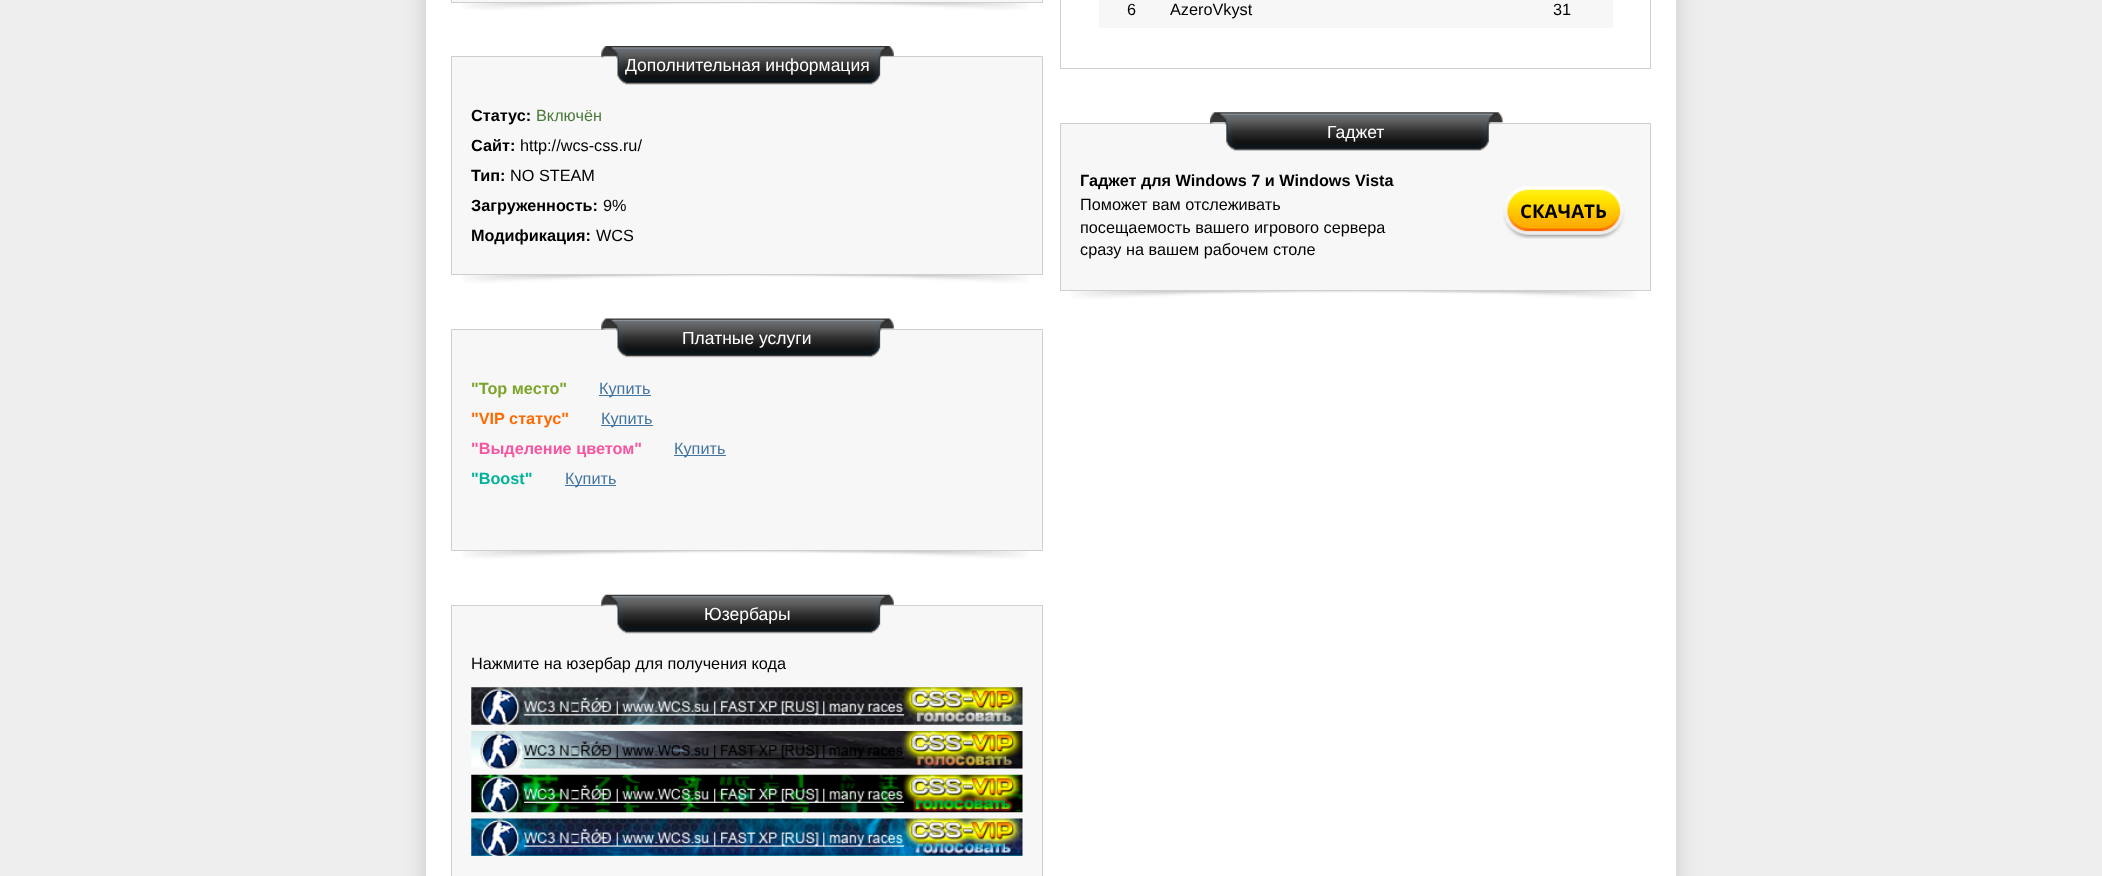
(async () => {
const canvas = document.querySelector("canvas")
canvas.width = 2102
canvas.height = 876
const c = canvas.getContext("2d")
c.miterLimit = 4
c.fontKerning = "normal"
function T(s,x,y){c.fillText(s,x,y)}
function R(x,y,w,h){c.fillRect(x,y,w,h)}
async function I(src,x,y,w,h){const img=new Image();img.src=src;await img.decode();c.drawImage(img,x,y,w,h)}
c.fillStyle="#eee"
R(0,0,2102,876)
c.fillStyle="#c7c7c7"
c.filter="blur(10.5px)"
c.beginPath()
c.roundRect(426,-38,1250,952,6)
c.fill()
c.filter="none"
c.fillStyle="#fff"
R(426,0,1250,876)
await I("1.png",462,3,566,7)
c.fillStyle="#f7f7f7"
c.beginPath()
c.rect(451.5,-.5,591,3)
c.fill()
c.strokeStyle="#cfcfcf"
c.stroke()
await I("2.png",462,275,566,8)
c.beginPath()
c.rect(451.5,56.5,591,218)
c.fill()
c.stroke()
await I("3.png",601,46,293,39)
c.font="17.5px Liberation Sans"
c.fillStyle="#fff"
T("Дополнительная информация",625,71)
c.font="bold 16.25px Liberation Sans"
c.fillStyle="#000"
T("Статус:",471,121)
c.font="16.25px Liberation Sans"
c.fillStyle="#497a39"
T("Включён",536,121)
c.font="bold 16.25px Liberation Sans"
c.fillStyle="#000"
T("Сайт:",471,151)
c.font="16.25px Liberation Sans"
T("http://wcs-css.ru/",520,151)
c.font="bold 16.25px Liberation Sans"
T("Тип:",471,181)
c.font="16.25px Liberation Sans"
T("NO STEAM",510,181)
c.font="bold 16.25px Liberation Sans"
T("Загруженность:",471,211)
c.font="16.25px Liberation Sans"
T("9%",603,211)
c.font="bold 16.25px Liberation Sans"
T("Модификация:",471,241)
c.font="16.25px Liberation Sans"
T("WCS",596,241)
await I("4.png",462,551,566,8)
c.fillStyle="#f7f7f7"
c.beginPath()
c.rect(451.5,329.5,591,221)
c.fill()
c.stroke()
await I("5.png",601,318,293,40)
c.font="17.5px Liberation Sans"
c.fillStyle="#fff"
T("Платные услуги",682,344)
c.font="bold 16.25px Liberation Sans"
c.fillStyle="#7ba428"
T("\"Top место\"",471,394)
c.fillStyle="#4275a0"
R(599,395,52,1)
c.font="16.25px Liberation Sans"
T("Купить",599,394)
c.font="bold 16.25px Liberation Sans"
c.fillStyle="#ff6a00"
T("\"VIP статус\"",471,424)
c.fillStyle="#4275a0"
R(601,425,52,1)
c.font="16.25px Liberation Sans"
T("Купить",601,424)
c.font="bold 16.25px Liberation Sans"
c.fillStyle="#f655a0"
T("\"Выделение цветом\"",471,454)
c.fillStyle="#4275a0"
R(674,455,52,1)
c.font="16.25px Liberation Sans"
T("Купить",674,454)
c.font="bold 16.25px Liberation Sans"
c.fillStyle="#00b29c"
T("\"Boost\"",471,484)
c.fillStyle="#4275a0"
R(565,485,51,1)
c.font="16.25px Liberation Sans"
T("Купить",565,484)
c.fillStyle="#f7f7f7"
c.beginPath()
c.rect(451.5,605.5,591,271)
c.fill()
c.stroke()
await I("6.png",601,594,293,40)
c.font="17.5px Liberation Sans"
c.fillStyle="#fff"
T("Юзербары",704,620)
c.font="16.25px Liberation Sans"
c.fillStyle="#000"
T("Нажмите на юзербар для получения кода",471,669)
await I("7.png",471,687,552,38)
await I("8.png",471,731,552,38)
await I("9.png",471,774,552,39)
await I("10.png",471,818,552,38)
c.strokeRect(1060.5,-.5,590,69)
c.fillStyle="#f7f7f7"
R(1099,0,514,28)
c.fillStyle="#000"
T("6",1127,15)
T("AzeroVkyst",1170,15)
T("31",1553,15)
await I("11.png",1071,291,566,8)
c.fillStyle="#f7f7f7"
c.beginPath()
c.rect(1060.5,123.5,590,167)
c.fill()
c.stroke()
await I("12.png",1210,112,293,39)
c.font="17.5px Liberation Sans"
c.fillStyle="#fff"
T("Гаджет",1327,138)
c.font="bold 16.25px Liberation Sans"
c.fillStyle="#000"
T("Гаджет для Windows 7 и Windows Vista",1080,186)
c.font="16.25px Liberation Sans"
T("Поможет вам отслеживать",1080,210)
await I("13.png",1503,186,122,53)
c.font="bold 18.75px Open Sans"
T("СКАЧАТЬ",1520,218)
c.font="16.25px Liberation Sans"
T("посещаемость вашего игрового сервера",1080,233)
T("сразу на вашем рабочем столе",1080,255)
})()
